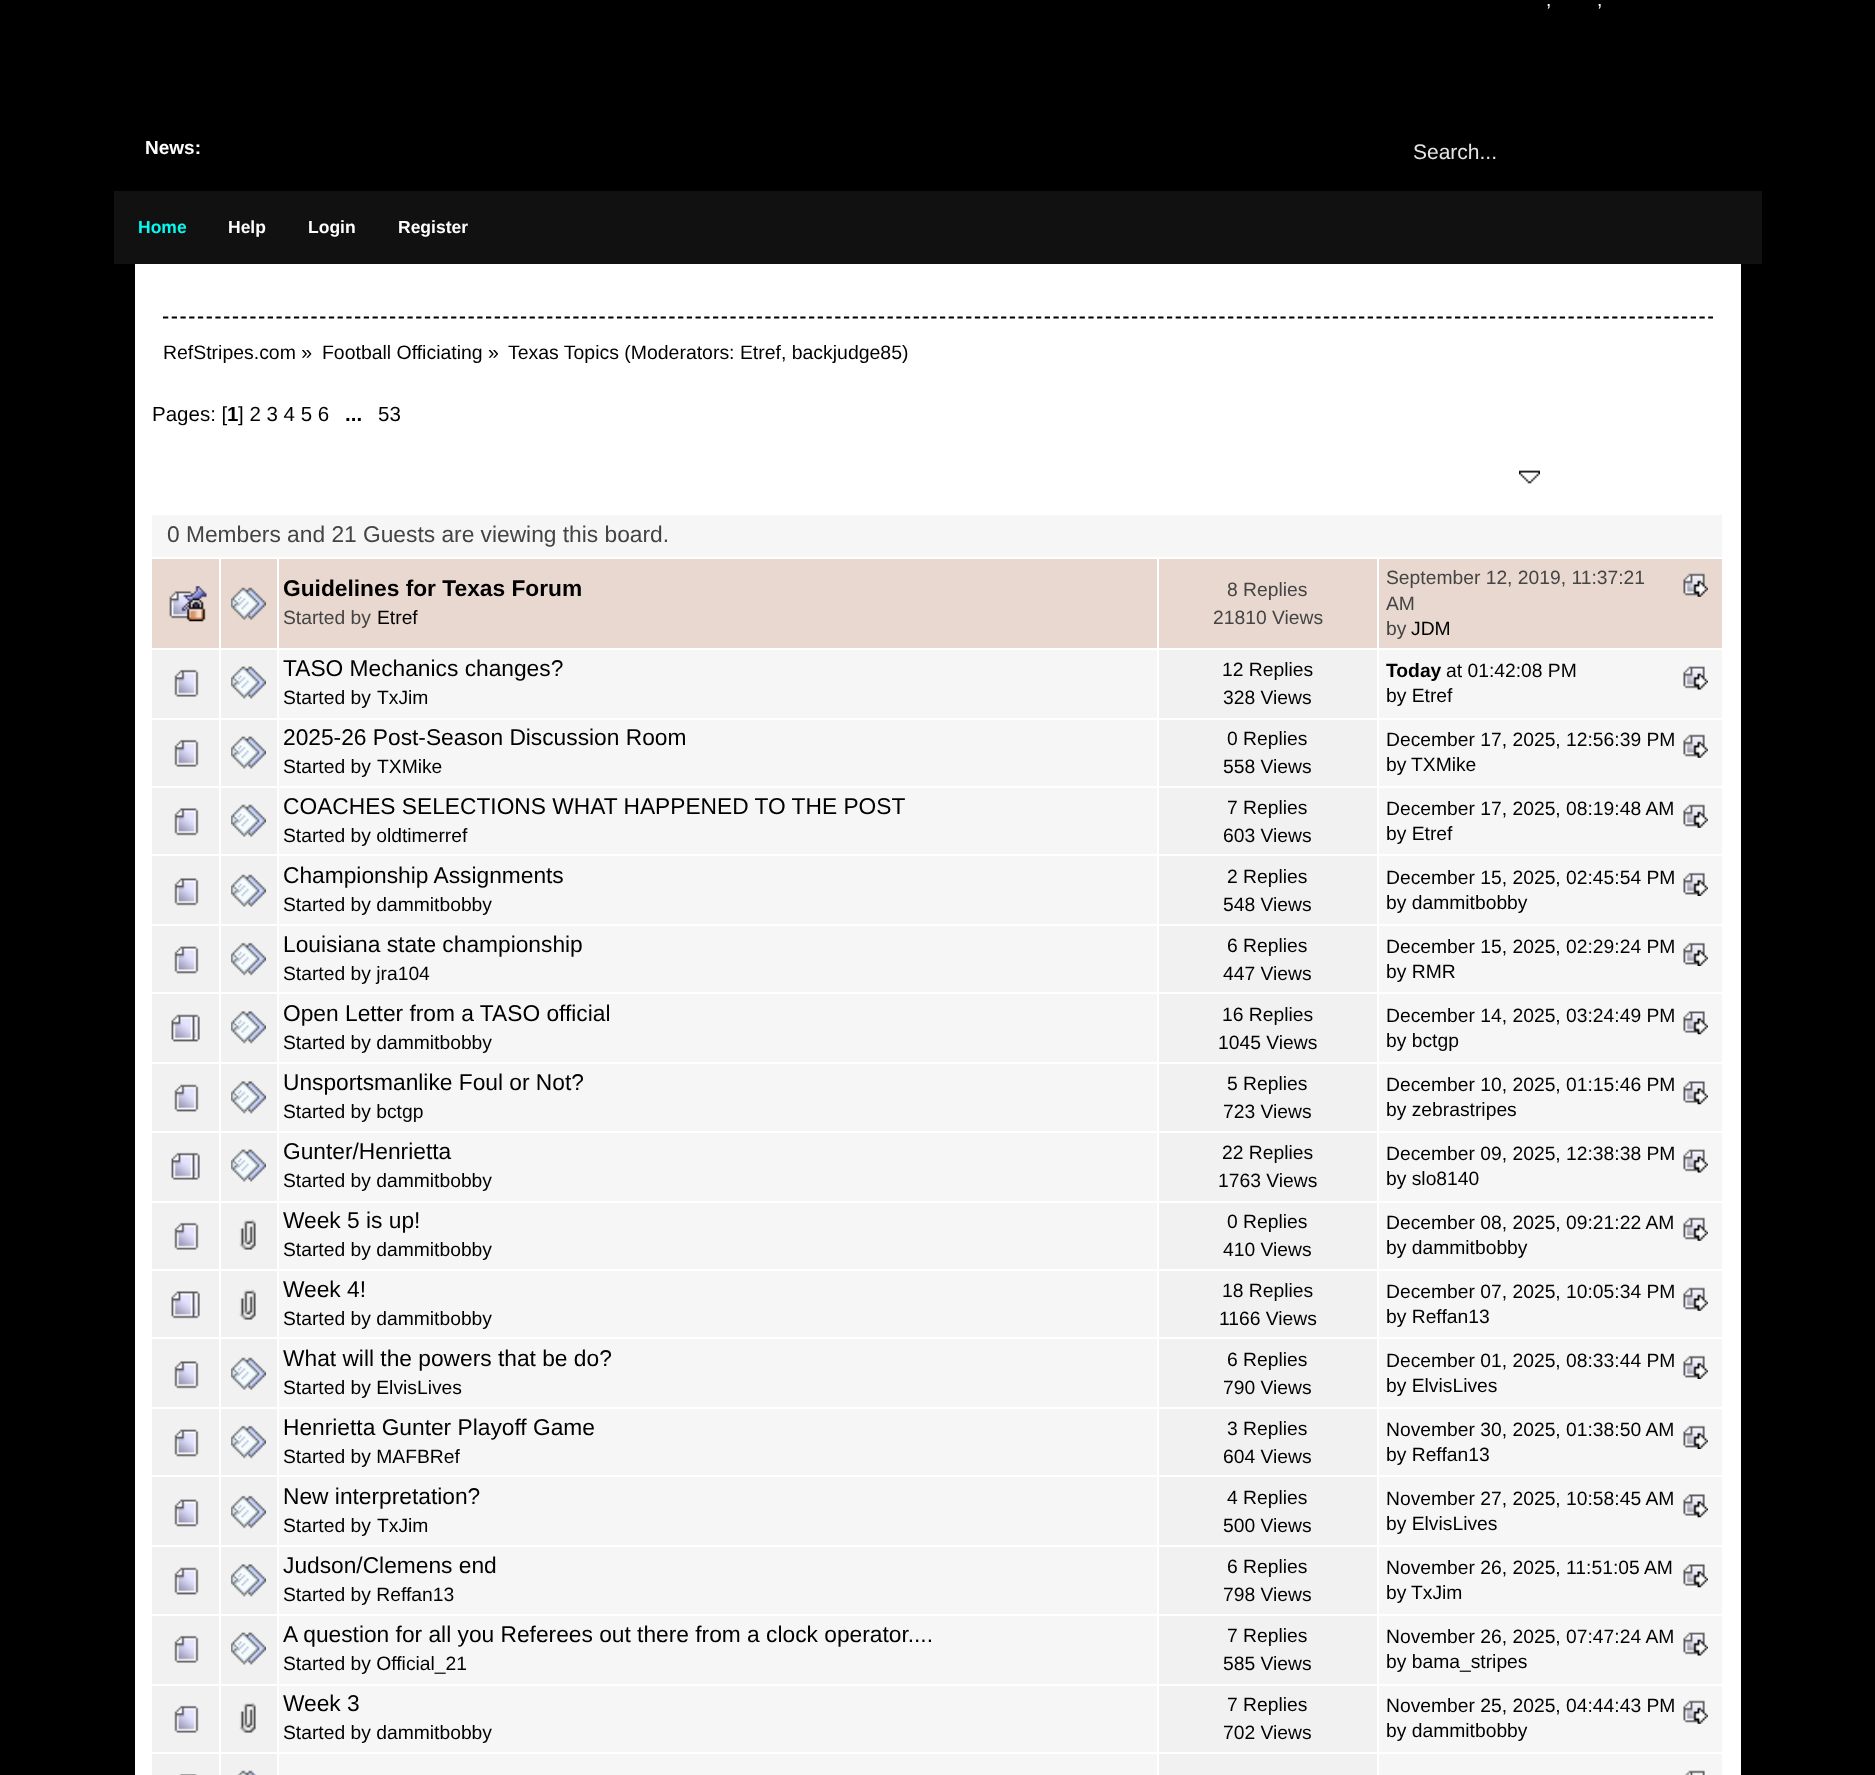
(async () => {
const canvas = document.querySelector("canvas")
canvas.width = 1875
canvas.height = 1775
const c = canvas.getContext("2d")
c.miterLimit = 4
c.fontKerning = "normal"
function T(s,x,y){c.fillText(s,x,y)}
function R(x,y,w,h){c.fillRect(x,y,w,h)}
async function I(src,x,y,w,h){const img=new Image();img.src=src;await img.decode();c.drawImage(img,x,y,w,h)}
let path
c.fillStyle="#000"
R(0,0,1875,1775)
c.font="19px Liberation Sans"
c.fillStyle="#fff"
T(",",1546,6)
T(",",1597,6)
c.font="bold 19px Liberation Sans"
T("News:",145,154)
c.font="21px Liberation Sans"
c.fillStyle="#e5e5e5"
T("Search...",1413,159)
c.fillStyle="#111"
R(114,191,1648,73)
c.font="bold 17.5px Liberation Sans"
c.fillStyle="#07faf2"
T("Home",138,233)
c.fillStyle="#fff"
T("Help",228,233)
T("Login",308,233)
T("Register",398,233)
R(135,264,1606,1511)
path = new Path2D("M163 317.5h1550")
c.strokeStyle="#000"
c.lineWidth=1.8
c.setLineDash([5.25,3.48])
c.stroke(path)
c.font="19.45px Liberation Sans"
c.fillStyle="#000"
T("RefStripes.com »",163,359)
T("Football Officiating »",322,359)
T("Texas Topics (Moderators: Etref, backjudge85)",508,359)
c.font="20.5px Liberation Sans"
T("Pages: [",152,421)
c.font="bold 20.5px Liberation Sans"
T("1",227,421)
c.font="20.5px Liberation Sans"
T("] 2 3 4 5 6",238,421)
c.font="bold 20.5px Liberation Sans"
T("...",345,421)
c.font="20.5px Liberation Sans"
T("53",378,421)
await I("1.png",1519,470,21,14)
c.fillStyle="#f6f6f6"
R(152,515,1570,42)
c.font="22.75px Liberation Sans"
c.fillStyle="#444"
T("0 Members and 21 Guests are viewing this board.",167,542)
c.fillStyle="#e8d8cf"
R(152,559,67,89)
await I("2.png",169,586,38,36)
R(221,559,56,89)
await I("3.png",231,587,35,33)
R(279,559,878,89)
c.font="bold 22.75px Liberation Sans"
c.fillStyle="#000"
T("Guidelines for Texas Forum",283,596)
c.font="19.3px Liberation Sans"
c.fillStyle="#444"
T("Started by",283,624)
c.fillStyle="#000"
T("Etref",377,624)
c.fillStyle="#e8d8cf"
R(1159,559,218,89)
c.fillStyle="#444"
T("8 Replies",1227,596)
T("21810 Views",1213,624)
c.fillStyle="#e8d8cf"
R(1379,559,343,89)
c.fillStyle="#444"
T("September 12, 2019, 11:37:21",1386,584)
await I("4.png",1683,573,25,24)
T("AM",1386,610)
T("by",1386,635)
c.fillStyle="#000"
T("JDM",1411,635)
c.fillStyle="#f1f1f1"
R(152,650,67,68)
await I("5.png",174,669,25,28)
R(221,650,56,68)
await I("6.png",231,666,35,33)
c.fillStyle="#f6f6f6"
R(279,650,878,68)
c.font="22.75px Liberation Sans"
c.fillStyle="#000"
T("TASO Mechanics changes?",283,676)
c.font="19.3px Liberation Sans"
T("Started by",283,704)
T("TxJim",377,704)
c.fillStyle="#f1f1f1"
R(1159,650,218,68)
c.fillStyle="#000"
T("12 Replies",1222,676)
T("328 Views",1223,704)
c.fillStyle="#f6f6f6"
R(1379,650,343,68)
c.font="bold 19.3px Liberation Sans"
c.fillStyle="#000"
T("Today",1386,677)
c.font="19.3px Liberation Sans"
T("at 01:42:08 PM",1446,677)
await I("7.png",1683,666,25,24)
T("by Etref",1386,702)
c.fillStyle="#f1f1f1"
R(152,720,67,66)
await I("5.png",174,739,25,28)
R(221,720,56,66)
await I("6.png",231,736,35,33)
c.fillStyle="#f6f6f6"
R(279,720,878,66)
c.font="22.75px Liberation Sans"
c.fillStyle="#000"
T("2025-26 Post-Season Discussion Room",283,745)
c.font="19.3px Liberation Sans"
T("Started by",283,773)
T("TXMike",377,773)
c.fillStyle="#f1f1f1"
R(1159,720,218,66)
c.fillStyle="#000"
T("0 Replies",1227,745)
T("558 Views",1223,773)
c.fillStyle="#f6f6f6"
R(1379,720,343,66)
c.fillStyle="#000"
T("December 17, 2025, 12:56:39 PM",1386,746)
await I("8.png",1683,734,25,24)
T("by",1386,771)
T("TXMike",1411,771)
c.fillStyle="#f1f1f1"
R(152,788,67,66)
await I("9.png",174,808,25,28)
R(221,788,56,66)
await I("10.png",231,804,35,33)
c.fillStyle="#f6f6f6"
R(279,788,878,66)
c.font="22.75px Liberation Sans"
c.fillStyle="#000"
T("COACHES SELECTIONS WHAT HAPPENED TO THE POST",283,814)
c.font="19.3px Liberation Sans"
T("Started by oldtimerref",283,842)
c.fillStyle="#f1f1f1"
R(1159,788,218,66)
c.fillStyle="#000"
T("7 Replies",1227,814)
T("603 Views",1223,842)
c.fillStyle="#f6f6f6"
R(1379,788,343,66)
c.fillStyle="#000"
T("December 17, 2025, 08:19:48 AM",1386,815)
await I("8.png",1683,804,25,24)
T("by Etref",1386,840)
c.fillStyle="#f1f1f1"
R(152,856,67,68)
await I("9.png",174,878,25,28)
R(221,856,56,68)
await I("10.png",231,874,35,33)
c.fillStyle="#f6f6f6"
R(279,856,878,68)
c.font="22.75px Liberation Sans"
c.fillStyle="#000"
T("Championship Assignments",283,883)
c.font="19.3px Liberation Sans"
T("Started by dammitbobby",283,911)
c.fillStyle="#f1f1f1"
R(1159,856,218,68)
c.fillStyle="#000"
T("2 Replies",1227,883)
T("548 Views",1223,911)
c.fillStyle="#f6f6f6"
R(1379,856,343,68)
c.fillStyle="#000"
T("December 15, 2025, 02:45:54 PM",1386,884)
await I("11.png",1683,872,25,24)
T("by dammitbobby",1386,909)
c.fillStyle="#f1f1f1"
R(152,926,67,66)
await I("12.png",174,946,25,28)
R(221,926,56,66)
await I("13.png",231,942,35,34)
c.fillStyle="#f6f6f6"
R(279,926,878,66)
c.font="22.75px Liberation Sans"
c.fillStyle="#000"
T("Louisiana state championship",283,952)
c.font="19.3px Liberation Sans"
T("Started by jra104",283,980)
c.fillStyle="#f1f1f1"
R(1159,926,218,66)
c.fillStyle="#000"
T("6 Replies",1227,952)
T("447 Views",1223,980)
c.fillStyle="#f6f6f6"
R(1379,926,343,66)
c.fillStyle="#000"
T("December 15, 2025, 02:29:24 PM",1386,953)
await I("11.png",1683,942,25,24)
T("by RMR",1386,978)
c.fillStyle="#f1f1f1"
R(152,994,67,68)
await I("14.png",171,1014,29,28)
R(221,994,56,68)
await I("15.png",231,1011,35,33)
c.fillStyle="#f6f6f6"
R(279,994,878,68)
c.font="22.75px Liberation Sans"
c.fillStyle="#000"
T("Open Letter from a TASO official",283,1021)
c.font="19.3px Liberation Sans"
T("Started by dammitbobby",283,1049)
c.fillStyle="#f1f1f1"
R(1159,994,218,68)
c.fillStyle="#000"
T("16 Replies",1222,1021)
T("1045 Views",1218,1049)
c.fillStyle="#f6f6f6"
R(1379,994,343,68)
c.fillStyle="#000"
T("December 14, 2025, 03:24:49 PM",1386,1022)
await I("16.png",1683,1011,25,24)
T("by bctgp",1386,1047)
c.fillStyle="#f1f1f1"
R(152,1064,67,67)
await I("17.png",174,1084,25,28)
R(221,1064,56,67)
await I("15.png",231,1081,35,33)
c.fillStyle="#f6f6f6"
R(279,1064,878,67)
c.font="22.75px Liberation Sans"
c.fillStyle="#000"
T("Unsportsmanlike Foul or Not?",283,1090)
c.font="19.3px Liberation Sans"
T("Started by bctgp",283,1118)
c.fillStyle="#f1f1f1"
R(1159,1064,218,67)
c.fillStyle="#000"
T("5 Replies",1227,1090)
T("723 Views",1223,1118)
c.fillStyle="#f6f6f6"
R(1379,1064,343,67)
c.fillStyle="#000"
T("December 10, 2025, 01:15:46 PM",1386,1091)
await I("16.png",1683,1081,25,24)
T("by zebrastripes",1386,1116)
c.fillStyle="#f1f1f1"
R(152,1133,67,68)
await I("18.png",171,1152,29,28)
R(221,1133,56,68)
await I("6.png",231,1149,35,33)
c.fillStyle="#f6f6f6"
R(279,1133,878,68)
c.font="22.75px Liberation Sans"
c.fillStyle="#000"
T("Gunter/Henrietta",283,1159)
c.font="19.3px Liberation Sans"
T("Started by dammitbobby",283,1187)
c.fillStyle="#f1f1f1"
R(1159,1133,218,68)
c.fillStyle="#000"
T("22 Replies",1222,1159)
T("1763 Views",1218,1187)
c.fillStyle="#f6f6f6"
R(1379,1133,343,68)
c.fillStyle="#000"
T("December 09, 2025, 12:38:38 PM",1386,1160)
await I("7.png",1683,1149,25,24)
T("by slo8140",1386,1185)
c.fillStyle="#f1f1f1"
R(152,1203,67,66)
await I("5.png",174,1222,25,28)
R(221,1203,56,66)
await I("19.png",239,1219,17,31)
c.fillStyle="#f6f6f6"
R(279,1203,878,66)
c.font="22.75px Liberation Sans"
c.fillStyle="#000"
T("Week 5 is up!",283,1228)
c.font="19.3px Liberation Sans"
T("Started by dammitbobby",283,1256)
c.fillStyle="#f1f1f1"
R(1159,1203,218,66)
c.fillStyle="#000"
T("0 Replies",1227,1228)
T("410 Views",1223,1256)
c.fillStyle="#f6f6f6"
R(1379,1203,343,66)
c.fillStyle="#000"
T("December 08, 2025, 09:21:22 AM",1386,1229)
await I("8.png",1683,1217,25,24)
T("by dammitbobby",1386,1254)
c.fillStyle="#f1f1f1"
R(152,1271,67,66)
await I("20.png",171,1291,29,28)
R(221,1271,56,66)
await I("19.png",239,1289,17,31)
c.fillStyle="#f6f6f6"
R(279,1271,878,66)
c.font="22.75px Liberation Sans"
c.fillStyle="#000"
T("Week 4!",283,1297)
c.font="19.3px Liberation Sans"
T("Started by dammitbobby",283,1325)
c.fillStyle="#f1f1f1"
R(1159,1271,218,66)
c.fillStyle="#000"
T("18 Replies",1222,1297)
T("1166 Views",1219,1325)
c.fillStyle="#f6f6f6"
R(1379,1271,343,66)
c.fillStyle="#000"
T("December 07, 2025, 10:05:34 PM",1386,1298)
await I("8.png",1683,1287,25,24)
T("by Reffan13",1386,1323)
c.fillStyle="#f1f1f1"
R(152,1339,67,68)
await I("9.png",174,1361,25,28)
R(221,1339,56,68)
await I("10.png",231,1357,35,33)
c.fillStyle="#f6f6f6"
R(279,1339,878,68)
c.font="22.75px Liberation Sans"
c.fillStyle="#000"
T("What will the powers that be do?",283,1366)
c.font="19.3px Liberation Sans"
T("Started by ElvisLives",283,1394)
c.fillStyle="#f1f1f1"
R(1159,1339,218,68)
c.fillStyle="#000"
T("6 Replies",1227,1366)
T("790 Views",1223,1394)
c.fillStyle="#f6f6f6"
R(1379,1339,343,68)
c.fillStyle="#000"
T("December 01, 2025, 08:33:44 PM",1386,1367)
await I("11.png",1683,1355,25,24)
T("by ElvisLives",1386,1392)
c.fillStyle="#f1f1f1"
R(152,1409,67,66)
await I("12.png",174,1429,25,28)
R(221,1409,56,66)
await I("13.png",231,1425,35,34)
c.fillStyle="#f6f6f6"
R(279,1409,878,66)
c.font="22.75px Liberation Sans"
c.fillStyle="#000"
T("Henrietta Gunter Playoff Game",283,1435)
c.font="19.3px Liberation Sans"
T("Started by MAFBRef",283,1463)
c.fillStyle="#f1f1f1"
R(1159,1409,218,66)
c.fillStyle="#000"
T("3 Replies",1227,1435)
T("604 Views",1223,1463)
c.fillStyle="#f6f6f6"
R(1379,1409,343,66)
c.fillStyle="#000"
T("November 30, 2025, 01:38:50 AM",1386,1436)
await I("11.png",1683,1425,25,24)
T("by Reffan13",1386,1461)
c.fillStyle="#f1f1f1"
R(152,1477,67,68)
await I("12.png",174,1499,25,28)
R(221,1477,56,68)
await I("13.png",231,1495,35,34)
c.fillStyle="#f6f6f6"
R(279,1477,878,68)
c.font="22.75px Liberation Sans"
c.fillStyle="#000"
T("New interpretation?",283,1504)
c.font="19.3px Liberation Sans"
T("Started by",283,1532)
T("TxJim",377,1532)
c.fillStyle="#f1f1f1"
R(1159,1477,218,68)
c.fillStyle="#000"
T("4 Replies",1227,1504)
T("500 Views",1223,1532)
c.fillStyle="#f6f6f6"
R(1379,1477,343,68)
c.fillStyle="#000"
T("November 27, 2025, 10:58:45 AM",1386,1505)
await I("16.png",1683,1494,25,24)
T("by ElvisLives",1386,1530)
c.fillStyle="#f1f1f1"
R(152,1547,67,67)
await I("17.png",174,1567,25,28)
R(221,1547,56,67)
await I("15.png",231,1564,35,33)
c.fillStyle="#f6f6f6"
R(279,1547,878,67)
c.font="22.75px Liberation Sans"
c.fillStyle="#000"
T("Judson/Clemens end",283,1573)
c.font="19.3px Liberation Sans"
T("Started by Reffan13",283,1601)
c.fillStyle="#f1f1f1"
R(1159,1547,218,67)
c.fillStyle="#000"
T("6 Replies",1227,1573)
T("798 Views",1223,1601)
c.fillStyle="#f6f6f6"
R(1379,1547,343,67)
c.fillStyle="#000"
T("November 26, 2025, 11:51:05 AM",1386,1574)
await I("16.png",1683,1564,25,24)
T("by",1386,1599)
T("TxJim",1411,1599)
c.fillStyle="#f1f1f1"
R(152,1616,67,68)
await I("5.png",174,1635,25,28)
R(221,1616,56,68)
await I("6.png",231,1632,35,33)
c.fillStyle="#f6f6f6"
R(279,1616,878,68)
c.font="22.75px Liberation Sans"
c.fillStyle="#000"
T("A question for all you Referees out there from a clock operator....",283,1642)
c.font="19.3px Liberation Sans"
T("Started by Official_21",283,1670)
c.fillStyle="#f1f1f1"
R(1159,1616,218,68)
c.fillStyle="#000"
T("7 Replies",1227,1642)
T("585 Views",1223,1670)
c.fillStyle="#f6f6f6"
R(1379,1616,343,68)
c.fillStyle="#000"
T("November 26, 2025, 07:47:24 AM",1386,1643)
await I("7.png",1683,1632,25,24)
T("by bama_stripes",1386,1668)
c.fillStyle="#f1f1f1"
R(152,1686,67,66)
await I("21.png",174,1705,25,28)
R(221,1686,56,66)
await I("22.png",239,1702,17,31)
c.fillStyle="#f6f6f6"
R(279,1686,878,66)
c.font="22.75px Liberation Sans"
c.fillStyle="#000"
T("Week 3",283,1711)
c.font="19.3px Liberation Sans"
T("Started by dammitbobby",283,1739)
c.fillStyle="#f1f1f1"
R(1159,1686,218,66)
c.fillStyle="#000"
T("7 Replies",1227,1711)
T("702 Views",1223,1739)
c.fillStyle="#f6f6f6"
R(1379,1686,343,66)
c.fillStyle="#000"
T("November 25, 2025, 04:44:43 PM",1386,1712)
await I("23.png",1683,1700,25,24)
T("by dammitbobby",1386,1737)
c.fillStyle="#f1f1f1"
R(152,1754,67,21)
await I("24.png",179,1774,18,1)
R(221,1754,56,21)
await I("25.png",237,1770,19,5)
c.fillStyle="#f6f6f6"
R(279,1754,878,21)
c.fillStyle="#f1f1f1"
R(1159,1754,218,21)
c.fillStyle="#f6f6f6"
R(1379,1754,343,21)
await I("26.png",1684,1770,21,5)
})()
